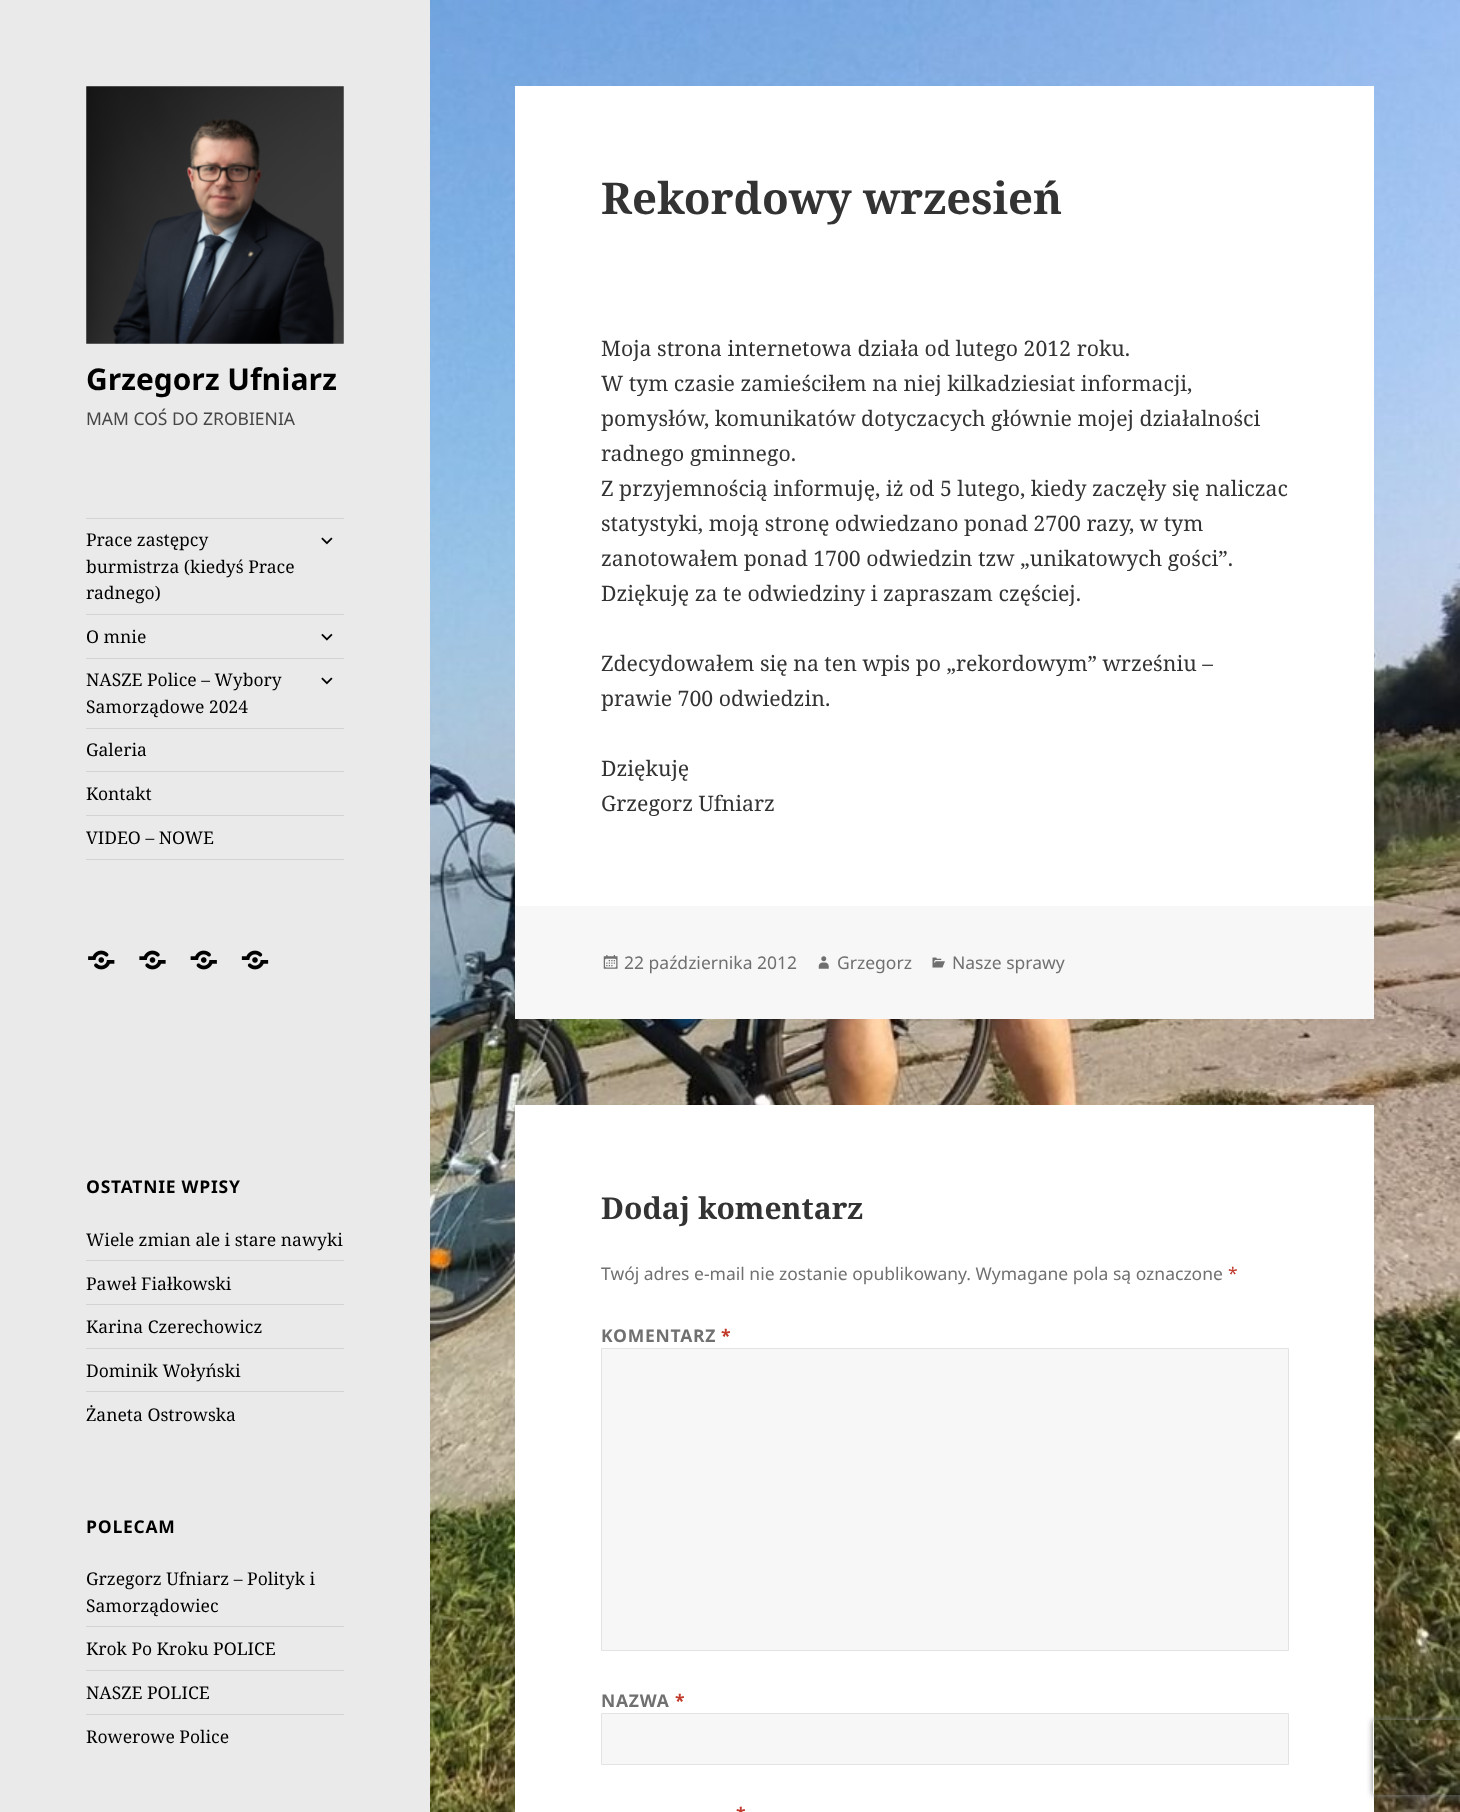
(async () => {
const canvas = document.querySelector("canvas")
canvas.width = 1460
canvas.height = 1812
const c = canvas.getContext("2d")
c.miterLimit = 4
c.fontKerning = "normal"
function T(s,x,y){c.fillText(s,x,y)}
function R(x,y,w,h){c.fillRect(x,y,w,h)}
async function I(src,x,y,w,h){const img=new Image();img.src=src;await img.decode();c.drawImage(img,x,y,w,h)}
let path
c.fillStyle="#fff"
R(0,0,1460,1812)
await I("1.png",430,0,1030,1812)
c.fillStyle="#eaeaea"
R(0,0,430,1812)
await I("2.png",86,86,258,258)
c.font="bold 30px Noto Sans"
c.fillStyle="#000"
T("Grzegorz Ufniarz",86,390)
c.font="17.5px Noto Sans"
c.fillStyle="#464646"
T("MAM COŚ DO ZROBIENIA",86,425)
c.fillStyle="#d3d3d3"
R(86,518,258,1)
R(86,859,258,1)
c.font="17.5px Noto Serif"
c.fillStyle="#000"
T("Prace zastępcy",86,546)
T("burmistrza (kiedyś Prace",86,573)
T("radnego)",86,599)
await I("3.png",321,537,12,8)
c.fillStyle="#d3d3d3"
R(86,614,258,1)
c.fillStyle="#000"
T("O mnie",86,643)
await I("4.png",321,633,12,8)
c.fillStyle="#d3d3d3"
R(86,658,258,1)
c.fillStyle="#000"
T("NASZE Police – Wybory",86,686)
T("Samorządowe 2024",86,713)
await I("3.png",321,677,12,8)
c.fillStyle="#d3d3d3"
R(86,728,258,1)
c.fillStyle="#000"
T("Galeria",86,756)
c.fillStyle="#d3d3d3"
R(86,771,258,1)
c.fillStyle="#000"
T("Kontakt",86,800)
c.fillStyle="#d3d3d3"
R(86,815,258,1)
c.fillStyle="#000"
T("VIDEO – NOWE",86,844)
await I("5.png",88,950,27,20)
await I("6.png",139,950,27,20)
await I("7.png",190,950,27,20)
await I("8.png",241,950,28,20)
c.letterSpacing="0.75px"
c.font="bold 17.5px Noto Sans"
T("OSTATNIE WPISY",86,1193)
c.letterSpacing="0px"
c.font="17.5px Noto Serif"
T("Wiele zmian ale i stare nawyki",86,1246)
c.fillStyle="#d3d3d3"
R(86,1260,258,1)
c.fillStyle="#000"
T("Paweł Fiałkowski",86,1290)
c.fillStyle="#d3d3d3"
R(86,1304,258,1)
c.fillStyle="#000"
T("Karina Czerechowicz",86,1333)
c.fillStyle="#d3d3d3"
R(86,1348,258,1)
c.fillStyle="#000"
T("Dominik Wołyński",86,1377)
c.fillStyle="#d3d3d3"
R(86,1391,258,1)
c.fillStyle="#000"
T("Żaneta Ostrowska",86,1421)
c.letterSpacing="0.75px"
c.font="bold 17.5px Noto Sans"
T("POLECAM",86,1533)
c.letterSpacing="0px"
c.font="17.5px Noto Serif"
T("Grzegorz Ufniarz – Polityk i",86,1585)
T("Samorządowiec",86,1612)
c.fillStyle="#d3d3d3"
R(86,1626,258,1)
c.fillStyle="#000"
T("Krok Po Kroku POLICE",86,1655)
c.fillStyle="#d3d3d3"
R(86,1670,258,1)
c.fillStyle="#000"
T("NASZE POLICE",86,1699)
c.fillStyle="#d3d3d3"
R(86,1714,258,1)
c.fillStyle="#000"
T("Rowerowe Police",86,1743)
c.fillStyle="#fff"
R(515,86,859,820)
c.font="bold 43.75px Noto Serif"
c.fillStyle="#333"
T("Rekordowy wrzesień",601,214)
c.font="21.25px Noto Serif"
T("Moja strona internetowa działa od lutego 2012 roku.",601,356)
T("W tym czasie zamieściłem na niej kilkadziesiat informacji,",601,391)
T("pomysłów, komunikatów dotyczacych głównie mojej działalności",601,426)
T("radnego gminnego.",601,461)
T("Z przyjemnością informuję, iż od 5 lutego, kiedy zaczęły się naliczac",601,496)
T("statystyki, moją stronę odwiedzano ponad 2700 razy, w tym",601,531)
T("zanotowałem ponad 1700 odwiedzin tzw „unikatowych gości”.",601,566)
T("Dziękuję za te odwiedziny i zapraszam częściej.",601,601)
T("Zdecydowałem się na ten wpis po „rekordowym” wrześniu –",601,671)
T("prawie 700 odwiedzin.",601,706)
T("Dziękuję",601,776)
T("Grzegorz Ufniarz",601,811)
c.fillStyle="#f7f7f7"
R(515,906,859,113)
await I("9.png",603,955,15,14)
c.font="17.5px Noto Sans"
c.fillStyle="#707070"
T("22 października 2012",624,969)
await I("10.png",818,956,11,13)
T("Grzegorz",837,969)
await I("11.png",932,957,13,11)
T("Nasze sprawy",952,969)
c.fillStyle="#fff"
R(515,1105,859,707)
c.font="bold 30px Noto Serif"
c.fillStyle="#333"
T("Dodaj komentarz",601,1219)
c.font="17.5px Noto Sans"
c.fillStyle="#707070"
T("Twój adres e-mail nie zostanie opublikowany. Wymagane pola są oznaczone",601,1280)
c.fillStyle="#c0392b"
T("*",1228,1280)
c.letterSpacing="0.75px"
c.font="bold 17.5px Noto Sans"
c.fillStyle="#707070"
T("KOMENTARZ",601,1342)
c.fillStyle="#c0392b"
T("*",721,1342)
c.fillStyle="#f7f7f7"
c.beginPath()
c.rect(601.5,1348.5,687,302)
c.fill()
c.strokeStyle="#e3e3e3"
c.stroke()
c.fillStyle="#707070"
T("NAZWA",601,1707)
c.fillStyle="#c0392b"
T("*",675,1707)
c.fillStyle="#f7f7f7"
c.beginPath()
c.rect(601.5,1713.5,687,51)
c.fill()
c.stroke()
c.fillStyle="#c0392b"
T("*",736,1820)
c.save()
path = new Path2D("M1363 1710h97v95h-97zm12.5 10h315c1.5 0 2.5 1 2.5 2.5v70c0 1.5-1 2.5-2.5 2.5h-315c-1.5 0-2.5-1-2.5-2.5v-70c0-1.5 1-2.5 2.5-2.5z")
c.clip(path,"evenodd")
c.fillStyle="#808080"
c.filter="blur(3px)"
c.beginPath()
c.roundRect(1373,1720,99,75,2.5)
c.fill()
c.filter="none"
c.restore()
})()
